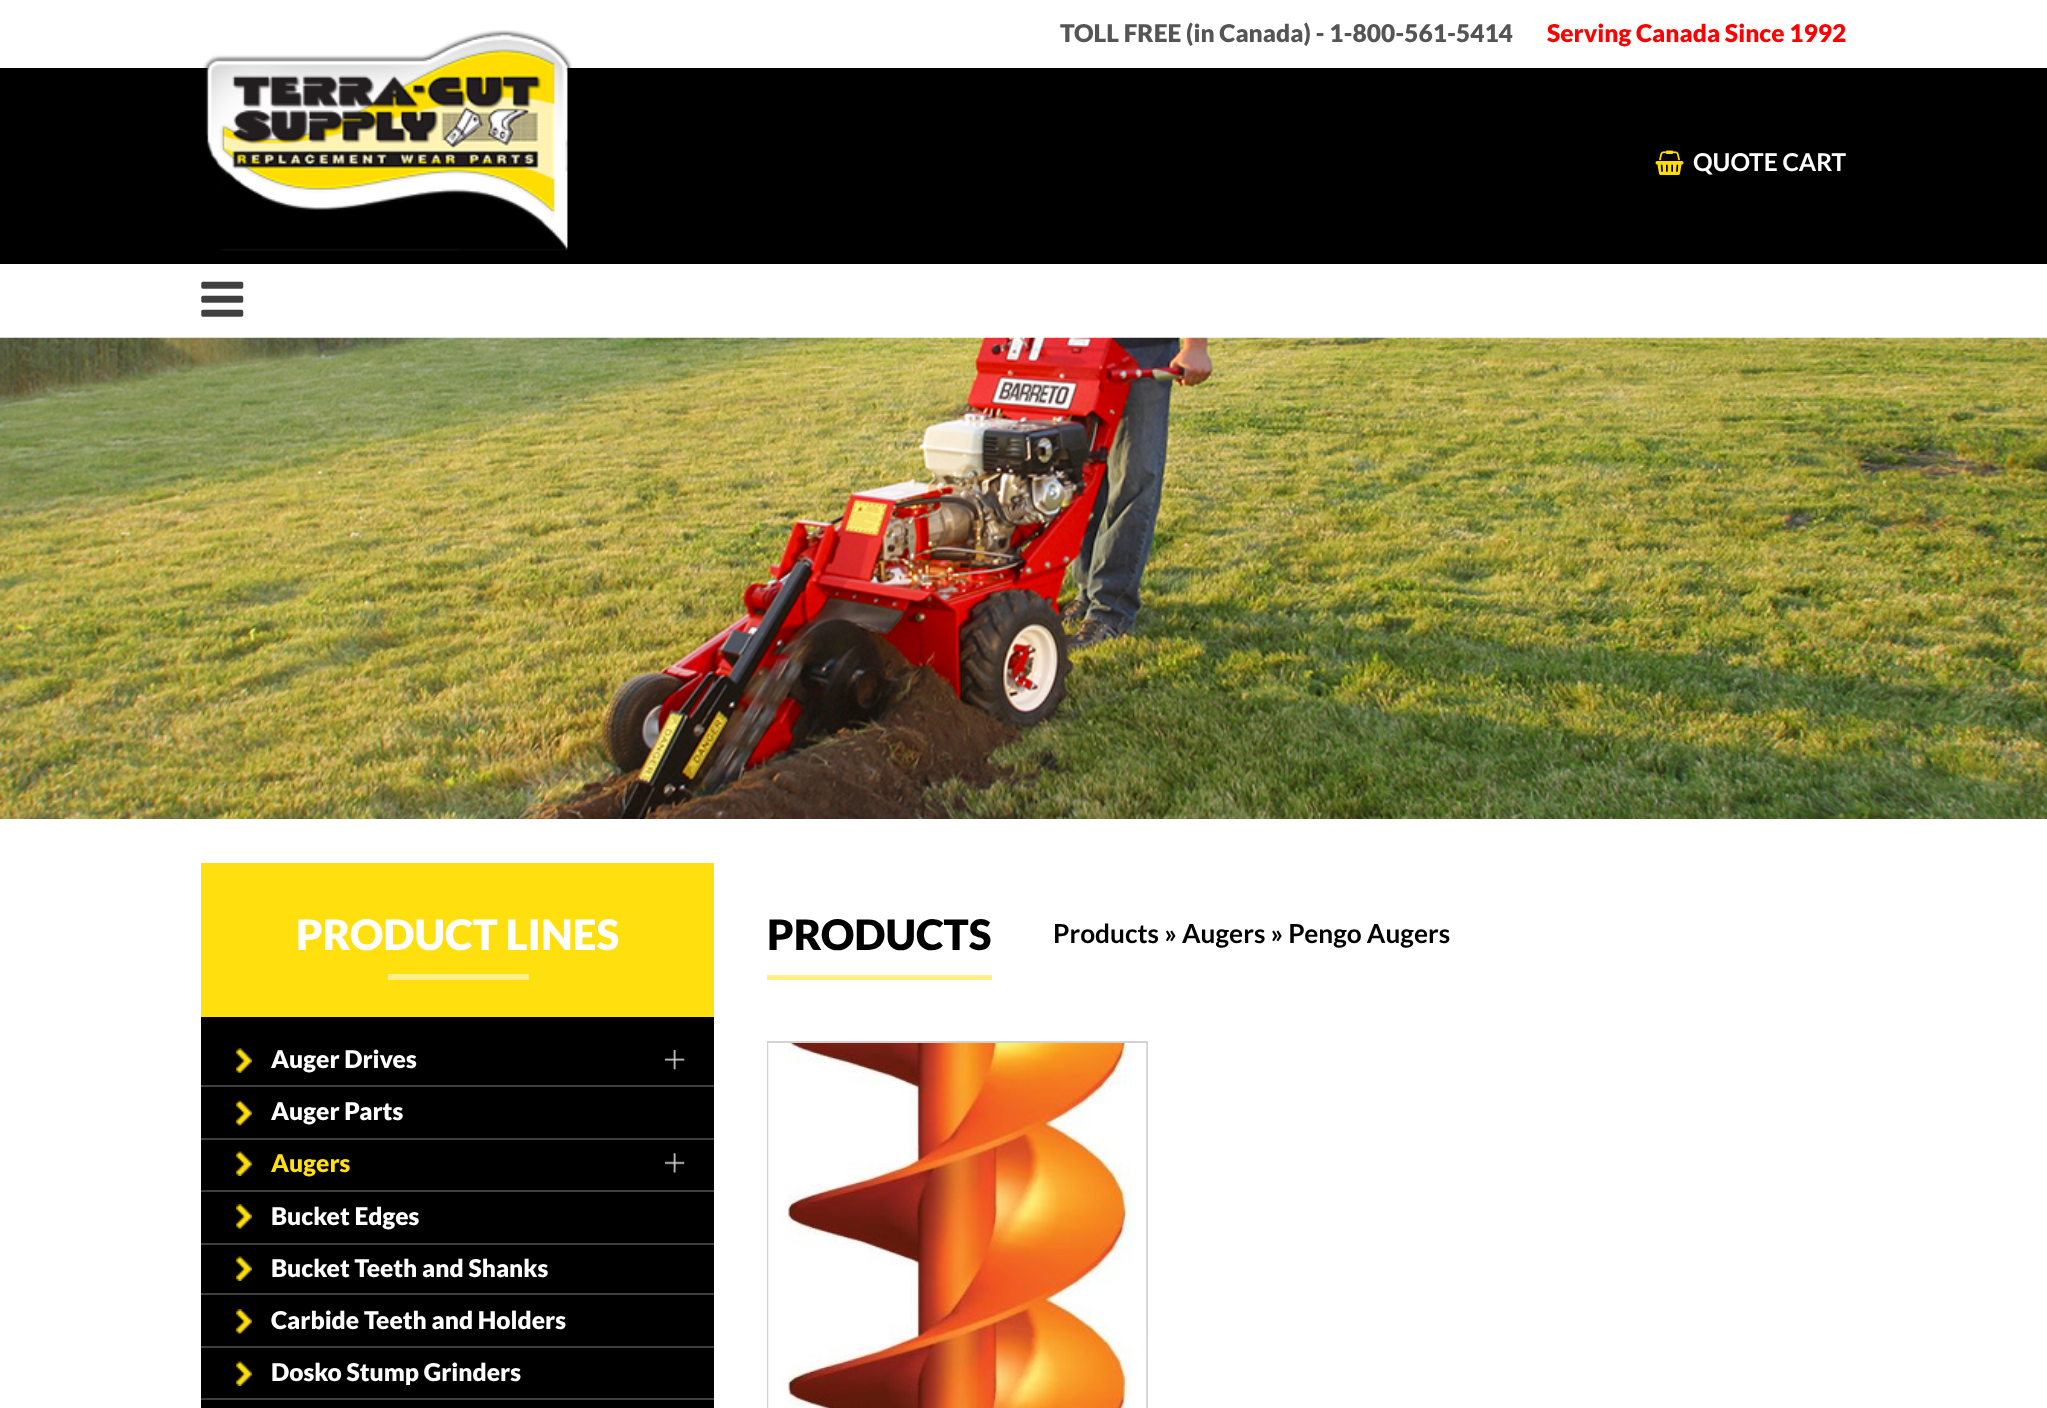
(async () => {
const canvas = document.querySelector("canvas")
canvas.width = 2047
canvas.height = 1408
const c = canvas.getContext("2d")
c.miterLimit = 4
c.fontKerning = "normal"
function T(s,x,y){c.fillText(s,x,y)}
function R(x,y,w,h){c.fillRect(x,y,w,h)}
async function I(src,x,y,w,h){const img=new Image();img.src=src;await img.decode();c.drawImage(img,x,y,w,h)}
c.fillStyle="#fff"
R(0,0,2047,1408)
c.fillStyle="#000"
R(0,68,2047,196)
c.font="900 24.5px Lato"
c.fillStyle="#555"
T("TOLL FREE (in Canada) - 1-800-561-5414",1060,42)
c.fillStyle="#f00"
T("Serving Canada Since 1992",1547,42)
await I("1.png",203,30,369,221)
await I("2.png",1655,150,29,25)
c.font="bold 24.5px Lato"
c.fillStyle="#fff"
T("QUOTE CART",1693,171)
await I("3.png",201,281,43,36)
await I("4.png",0,337,2047,482)
c.fillStyle="#ffdf0d"
R(201,863,513,154)
c.fillStyle="#ffef86"
R(388,974,141,6)
c.font="900 42px Lato"
c.fillStyle="#fff"
T("PRODUCT LINES",296,950)
c.fillStyle="#000"
R(201,1017,513,391)
c.fillStyle="#3e3e3e"
R(201,1085,513,2)
await I("5.png",236,1048,16,25)
c.font="900 24.5px Lato"
c.fillStyle="#fff"
T("Auger Drives",271,1068)
await I("6.png",665,1050,20,20)
c.fillStyle="#3e3e3e"
R(201,1138,513,2)
await I("7.png",236,1100,16,26)
c.fillStyle="#fff"
T("Auger Parts",271,1120)
c.fillStyle="#3e3e3e"
R(201,1190,513,2)
await I("8.png",236,1151,16,25)
c.fillStyle="#ffdf0d"
T("Augers",271,1172)
await I("9.png",665,1153,20,20)
c.fillStyle="#3e3e3e"
R(201,1243,513,2)
await I("10.png",236,1204,16,25)
c.fillStyle="#fff"
T("Bucket Edges",271,1225)
c.fillStyle="#3e3e3e"
R(201,1293,513,2)
await I("8.png",236,1256,16,25)
c.fillStyle="#fff"
T("Bucket Teeth and Shanks",271,1277)
c.fillStyle="#3e3e3e"
R(201,1346,513,2)
await I("10.png",236,1309,16,25)
c.fillStyle="#fff"
T("Carbide Teeth and Holders",271,1329)
c.fillStyle="#3e3e3e"
R(201,1398,513,2)
await I("8.png",236,1361,16,25)
c.fillStyle="#fff"
T("Dosko Stump Grinders",271,1381)
c.fillStyle="#ffef86"
R(767,975,225,5)
c.font="900 42px Lato"
c.fillStyle="#000"
T("PRODUCTS",767,950)
c.font="bold 26.25px Lato"
T("Products » Augers » Pengo Augers",1053,943)
c.strokeStyle="#d2d2d2"
c.lineWidth=2
c.strokeRect(768,1042,379,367)
await I("11.png",768,1043,379,365)
})()
